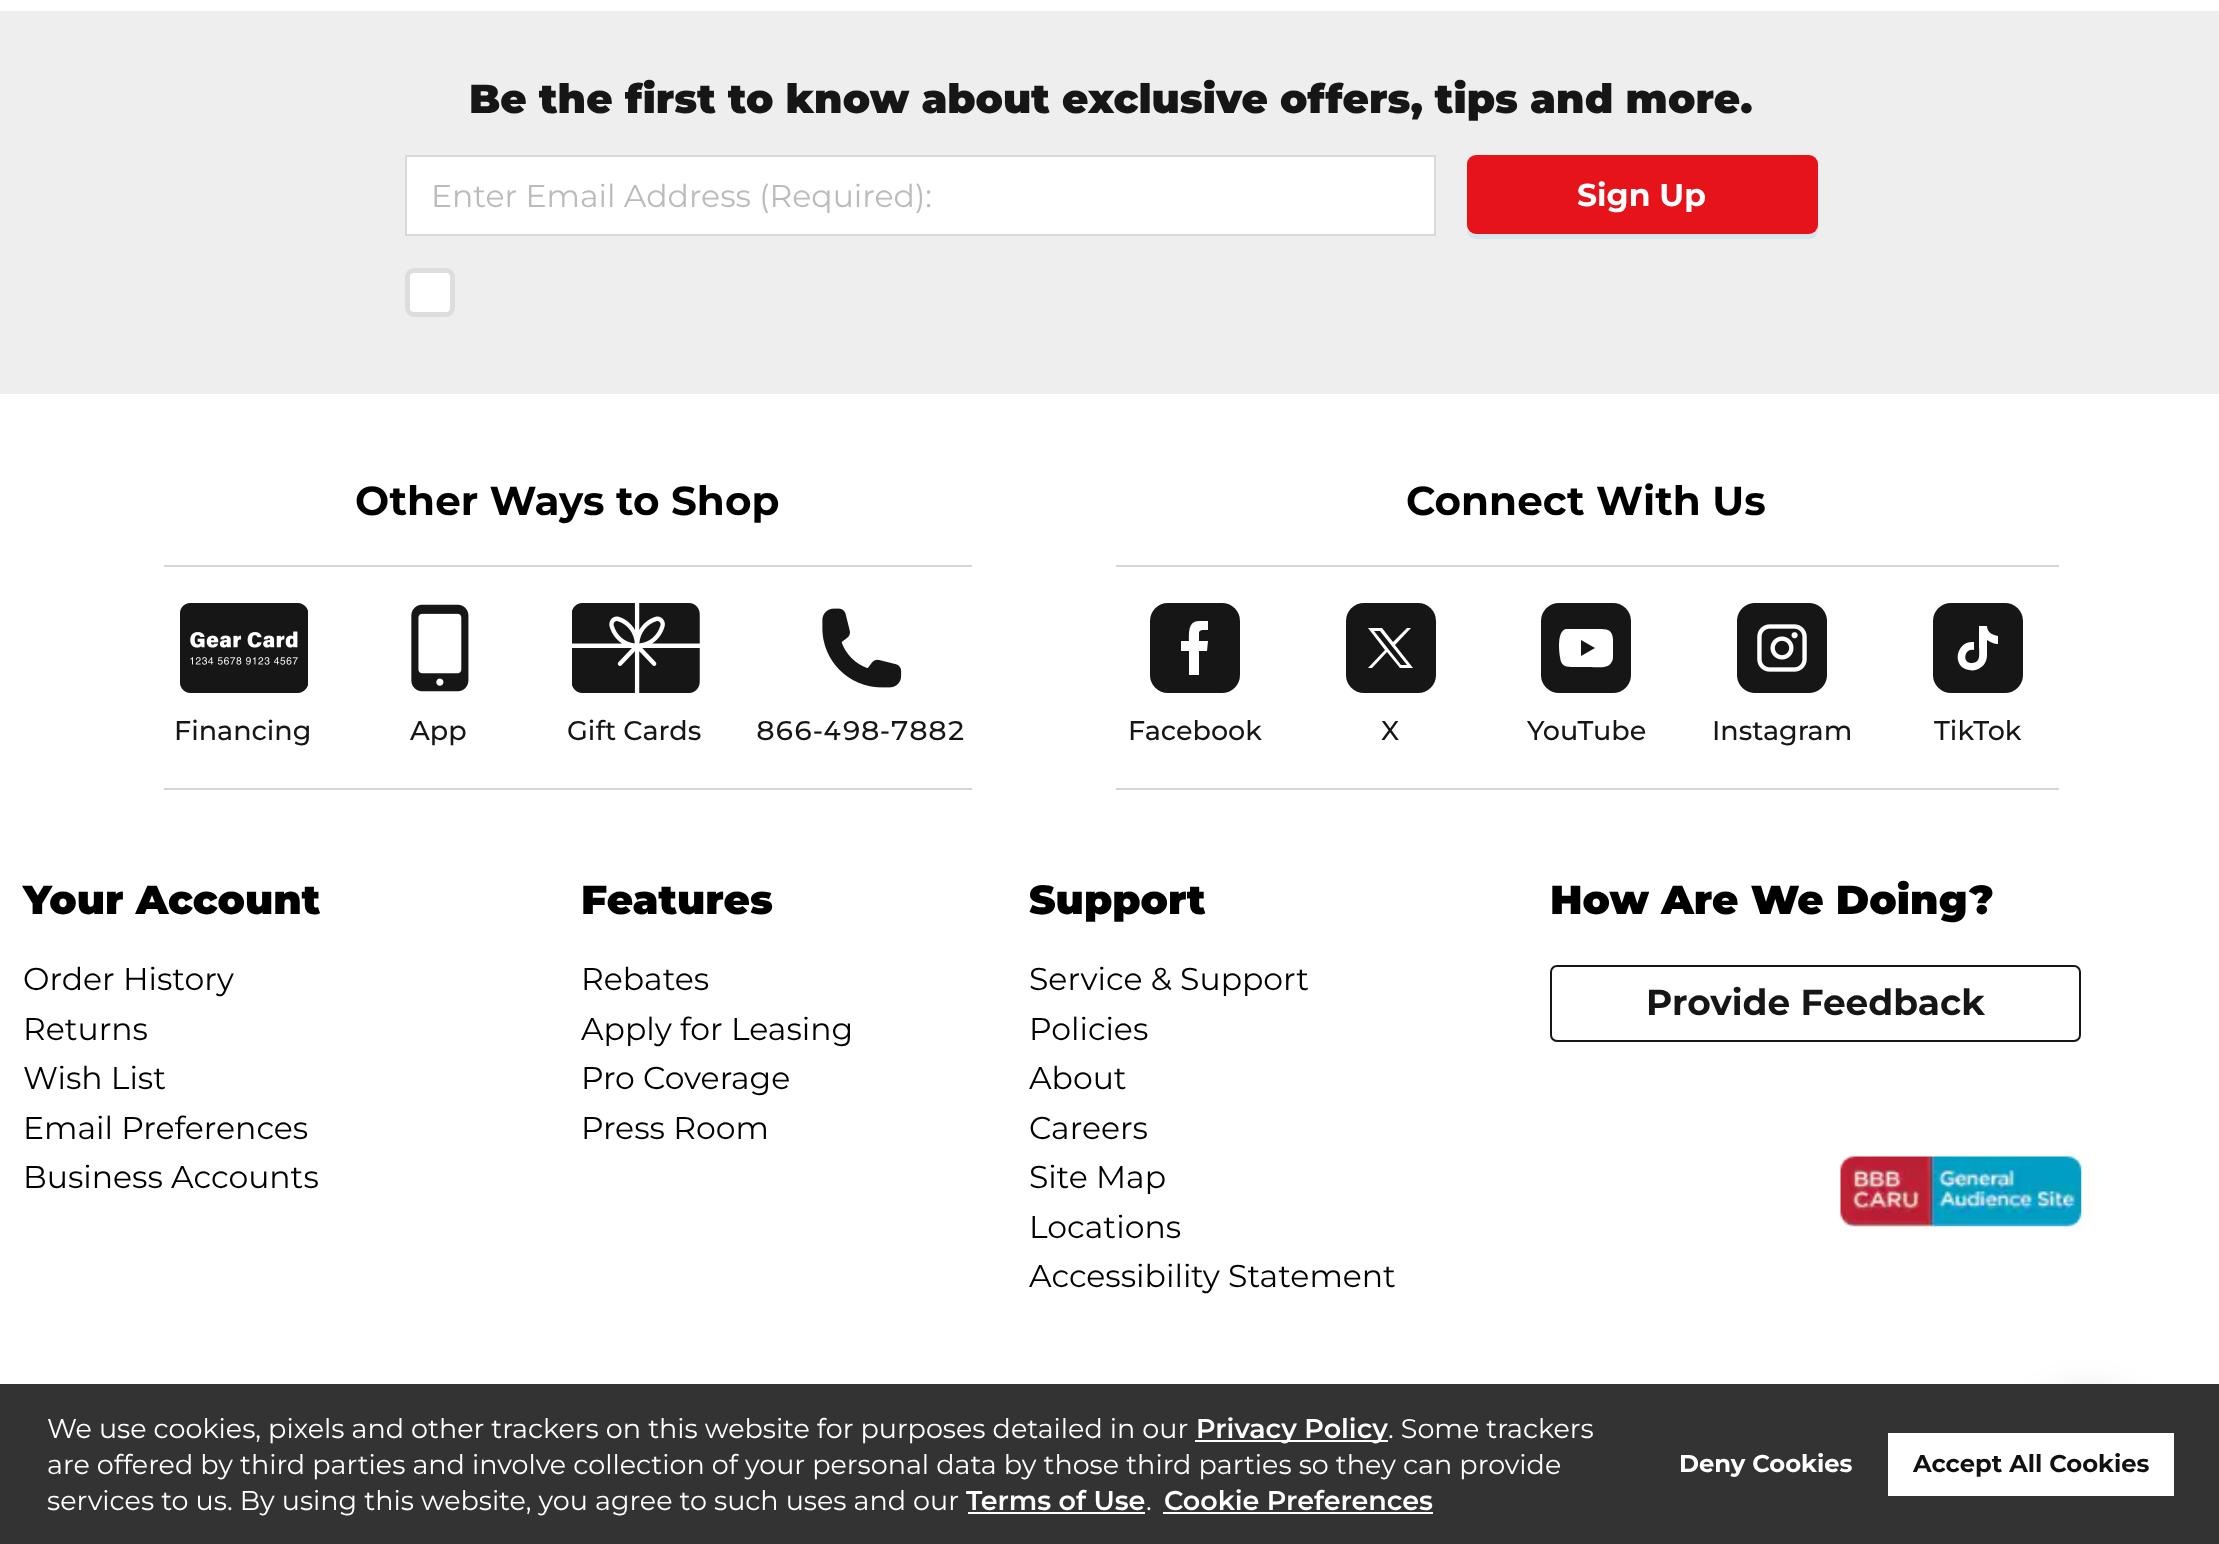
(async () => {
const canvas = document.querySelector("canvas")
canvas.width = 2219
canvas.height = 1544
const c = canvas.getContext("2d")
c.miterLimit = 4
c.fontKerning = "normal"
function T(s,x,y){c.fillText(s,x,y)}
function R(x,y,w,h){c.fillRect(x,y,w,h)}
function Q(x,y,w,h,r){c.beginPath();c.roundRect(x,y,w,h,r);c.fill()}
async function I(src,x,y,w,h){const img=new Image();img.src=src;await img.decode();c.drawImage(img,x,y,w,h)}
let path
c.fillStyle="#fff"
R(0,0,2219,1544)
c.fillStyle="#eee"
R(0,11,2219,383)
c.font="900 40.5px Montserrat"
c.fillStyle="#161616"
T("Be the first to know about exclusive offers, tips and more.",469,113)
c.fillStyle="#fff"
c.beginPath()
c.rect(406,156,1029,79)
c.fill()
c.strokeStyle="#d9d9d9"
c.lineWidth=2
c.stroke()
c.font="31.5px Montserrat"
c.fillStyle="#bbb"
T("Enter Email Address (Required):",431,207)
c.fillStyle="#fff"
c.beginPath()
c.roundRect(407.5,270.5,45,44,6.5)
c.fill()
c.strokeStyle="#ddd"
c.lineWidth=5
c.stroke()
c.fillStyle="#d7e5f0"
path = new Path2D("M1467 225v5c0 5 4 9 9 9h333c5 0 9-4 9-9v-5c0 5-4 9-9 9h-333c-5 0-9-4-9-9z")
c.fill(path)
c.fillStyle="#e7131a"
Q(1467,155,351,79,9)
c.font="bold 31.5px Montserrat"
c.fillStyle="#fff"
T("Sign Up",1577,206)
c.font="bold 40.5px Montserrat"
c.fillStyle="#000"
T("Other Ways to Shop",355,515)
c.fillStyle="#d1d5dc"
R(164,565,808,2)
R(164,788,808,2)
await I("1.png",180,603,128,90)
c.font="500 27px Montserrat"
c.fillStyle="#161616"
T("Financing",174,740)
await I("2.png",411,604,58,88)
T("App",410,740)
await I("3.png",572,603,128,90)
T("Gift Cards",567,740)
await I("4.png",822,608,80,80)
c.font="500 27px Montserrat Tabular"
T("866-498-7882",756,740)
c.font="bold 40.5px Montserrat"
c.fillStyle="#000"
T("Connect With Us",1406,515)
c.fillStyle="#d1d5dc"
R(1116,565,943,2)
R(1116,788,943,2)
c.fillStyle="#161616"
Q(1150,603,90,90,18)
c.fillStyle="#fff"
path = new Path2D("M1199 633v8h9l-1 10h-8v24c-3 0-6 0-10 0v-24h-8v-10h8c0-8-1-20 10-20h9v9c-3 0-9-1-9 3z")
c.fill(path)
c.font="500 27px Montserrat"
c.fillStyle="#161616"
T("Facebook",1128,740)
Q(1346,603,90,90,18)
c.fillStyle="#fff"
path = new Path2D("M1368 628l17 22l-17 18h4l15-16l13 16h13l-18-23l16-17h-4l-14 14l-11-14zm6 3h6l27 34h-6z")
c.fill(path)
c.fillStyle="#161616"
T("X",1381,740)
Q(1541,603,90,90,18)
c.fillStyle="#fff"
path = new Path2D("M1613 639c-1-10-6-10-15-10h-32c-9 2-7 21-6 28c1 10 6 10 15 10h15c4 0 18 2 21-4c2-2 2-5 2-8zm-32 17v-16l14 8z")
c.fill(path)
c.fillStyle="#161616"
T("YouTube",1527,740)
await I("5.png",1737,603,90,90)
T("Instagram",1712,740)
Q(1933,603,90,90,18)
c.fillStyle="#fff"
path = new Path2D("M1998 636v8c-4 0-8-2-11-4v15c0 5-2 10-7 13c-3 2-7 3-11 2c-18-3-13-30 5-28v8c-9-3-13 13-2 13c2 0 5-1 6-3c2-3 1-11 1-14v-20h8c0 6 5 9 11 10z")
c.fill(path)
c.fillStyle="#161616"
T("TikTok",1934,740)
c.font="900 40.5px Montserrat"
c.fillStyle="#000"
T("Your Account",23,914)
c.font="31.5px Montserrat"
T("Order History",23,990)
T("Returns",23,1040)
T("Wish List",23,1089)
T("Email Preferences",23,1139)
T("Business Accounts",23,1188)
c.font="900 40.5px Montserrat"
T("Features",581,914)
c.font="31.5px Montserrat"
T("Rebates",581,990)
T("Apply for Leasing",581,1040)
T("Pro Coverage",581,1089)
T("Press Room",581,1139)
c.font="900 40.5px Montserrat"
T("Support",1029,914)
c.font="31.5px Montserrat"
T("Service & Support",1029,990)
T("Policies",1029,1040)
T("About",1029,1089)
T("Careers",1029,1139)
T("Site Map",1029,1188)
T("Locations",1029,1238)
T("Accessibility Statement",1029,1287)
c.font="900 40.5px Montserrat"
T("How Are We Doing?",1550,914)
c.beginPath()
c.roundRect(1551,966,529,75,6)
c.strokeStyle="#161616"
c.lineWidth=2
c.stroke()
c.font="bold 36px Montserrat"
c.fillStyle="#161616"
T("Provide Feedback",1646,1015)
await I("6.png",1840,1156,242,71)
c.fillStyle="#00000021"
c.filter="blur(18px)"
c.beginPath()
c.roundRect(2023,1393,126,126,63)
c.fill()
c.filter="none"
c.fillStyle="#333"
R(0,1384,2219,160)
c.font="27px 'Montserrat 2'"
c.fillStyle="#fff"
T("We use cookies, pixels and other trackers on this website for purposes detailed in our",47,1438)
R(1195,1440,193,2)
c.font="600 27px Montserrat"
T("Privacy Policy",1196,1438)
c.font="27px 'Montserrat 2'"
T(". Some trackers",1388,1438)
T("are offered by third parties and involve collection of your personal data by those third parties so they can provide",47,1474)
T("services to us. By using this website, you agree to such uses and our",47,1510)
c.font="600 27px Montserrat"
T("Terms of Use",966,1510)
R(968,1512,177,2)
c.font="27px 'Montserrat 2'"
T(".",1146,1510)
c.font="600 27px Montserrat"
T("Cookie Preferences",1164,1510)
R(1163,1512,270,2)
c.font="bold 24.25px 'Montserrat 2'"
T("Deny Cookies",1679,1472)
R(1888,1433,286,63)
c.fillStyle="#121010"
T("Accept All Cookies",1913,1472)
})()
